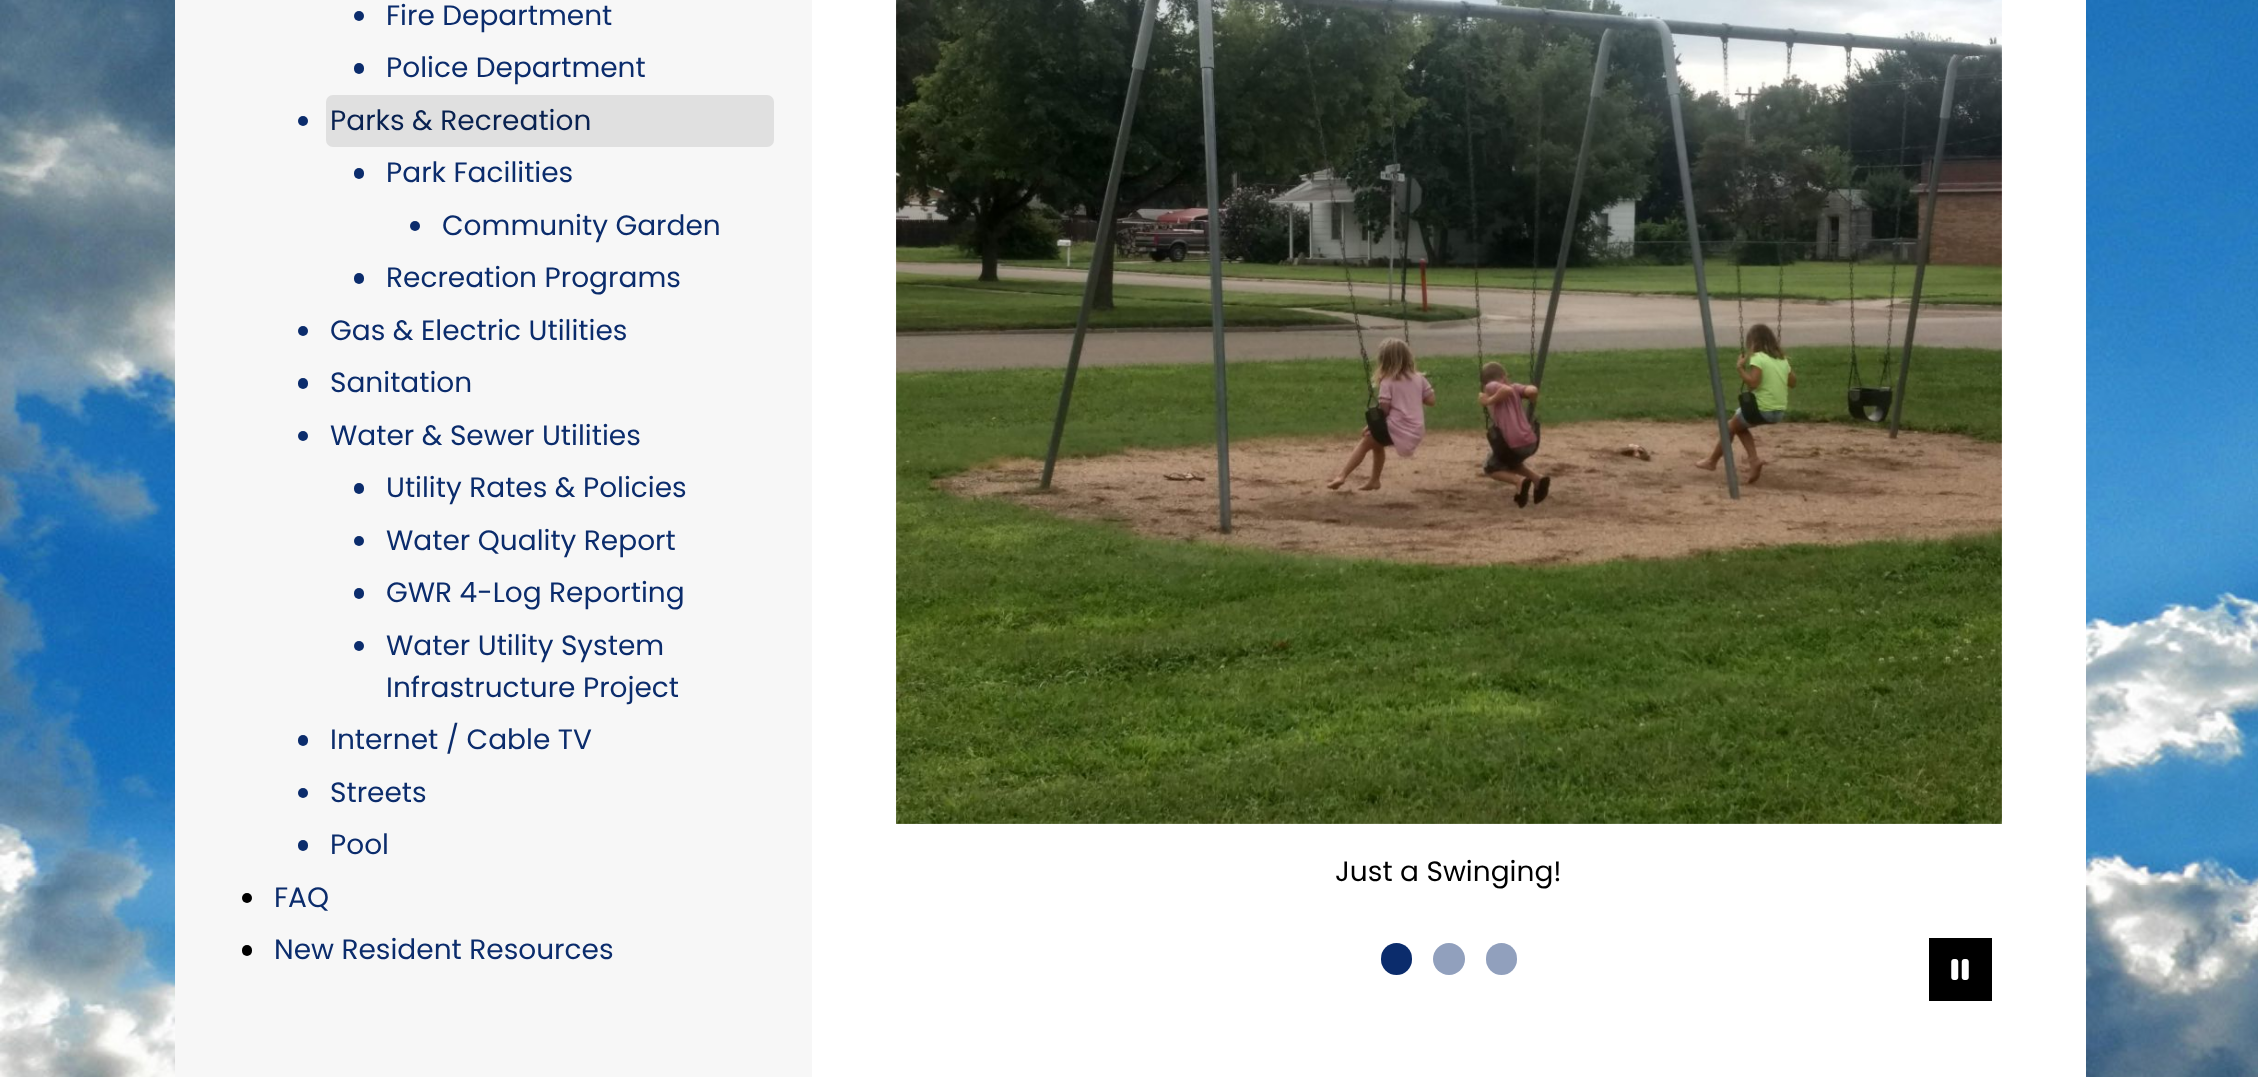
(async () => {
const canvas = document.querySelector("canvas")
canvas.width = 2258
canvas.height = 1077
const c = canvas.getContext("2d")
c.miterLimit = 4
c.fontKerning = "normal"
function T(s,x,y){c.fillText(s,x,y)}
function R(x,y,w,h){c.fillRect(x,y,w,h)}
function Q(x,y,w,h,r){c.beginPath();c.roundRect(x,y,w,h,r);c.fill()}
async function I(src,x,y,w,h){const img=new Image();img.src=src;await img.decode();c.drawImage(img,x,y,w,h)}
c.fillStyle="#fff"
R(0,0,2258,1077)
await I("1.png",0,0,2258,1077)
c.fillStyle="#f7f7f7"
R(175,0,637,1077)
c.fillStyle="#0b2c6c"
c.beginPath()
c.arc(359,16,5,0,7)
c.fill()
c.font="28px Poppins"
T("Fire Department",386,25)
Q(354,63,10,11,5)
T("Police Department",386,77)
c.beginPath()
c.arc(303,121,5,0,7)
c.fill()
c.fillStyle="#e0e0e0"
Q(326,95,448,52,7)
c.fillStyle="#082150"
T("Parks & Recreation",330,130)
c.fillStyle="#0b2c6c"
Q(354,168,10,11,5)
T("Park Facilities",386,182)
c.beginPath()
c.arc(415,226,5,0,7)
c.fill()
T("Community Garden",442,235)
Q(354,273,10,11,5)
T("Recreation Programs",386,287)
c.beginPath()
c.arc(303,331,5,0,7)
c.fill()
T("Gas & Electric Utilities",330,340)
Q(298,378,10,11,5)
T("Sanitation",330,392)
c.beginPath()
c.arc(303,436,5,0,7)
c.fill()
T("Water & Sewer Utilities",330,445)
Q(354,483,10,11,5)
T("Utility Rates & Policies",386,497)
c.beginPath()
c.arc(359,541,5,0,7)
c.fill()
T("Water Quality Report",386,550)
Q(354,588,10,11,5)
T("GWR 4-Log Reporting",386,602)
c.beginPath()
c.arc(359,646,5,0,7)
c.fill()
T("Water Utility System",386,655)
T("Infrastructure Project",386,697)
Q(298,735,10,11,5)
T("Internet / Cable TV",330,749)
c.beginPath()
c.arc(303,793,5,0,7)
c.fill()
T("Streets",330,802)
Q(298,840,10,11,5)
T("Pool",330,854)
c.fillStyle="#000"
c.beginPath()
c.arc(247,898,5,0,7)
c.fill()
c.fillStyle="#0b2c6c"
T("FAQ",274,907)
c.fillStyle="#000"
Q(242,945,10,11,5)
c.fillStyle="#0b2c6c"
T("New Resident Resources",274,959)
c.fillStyle="#fff"
R(812,0,1274,1077)
await I("2.png",896,0,1106,824)
c.fillStyle="#000"
T("Just a Swinging!",1335,881)
c.fillStyle="#0b2c6c"
Q(1381,943,31,32,15.5)
c.fillStyle="#91a0bd"
c.beginPath()
c.arc(1449,959,16,0,7)
c.fill()
Q(1486,943,31,32,15.5)
c.fillStyle="#000"
R(1929,938,63,63)
await I("3.png",1951,959,18,21)
})()
